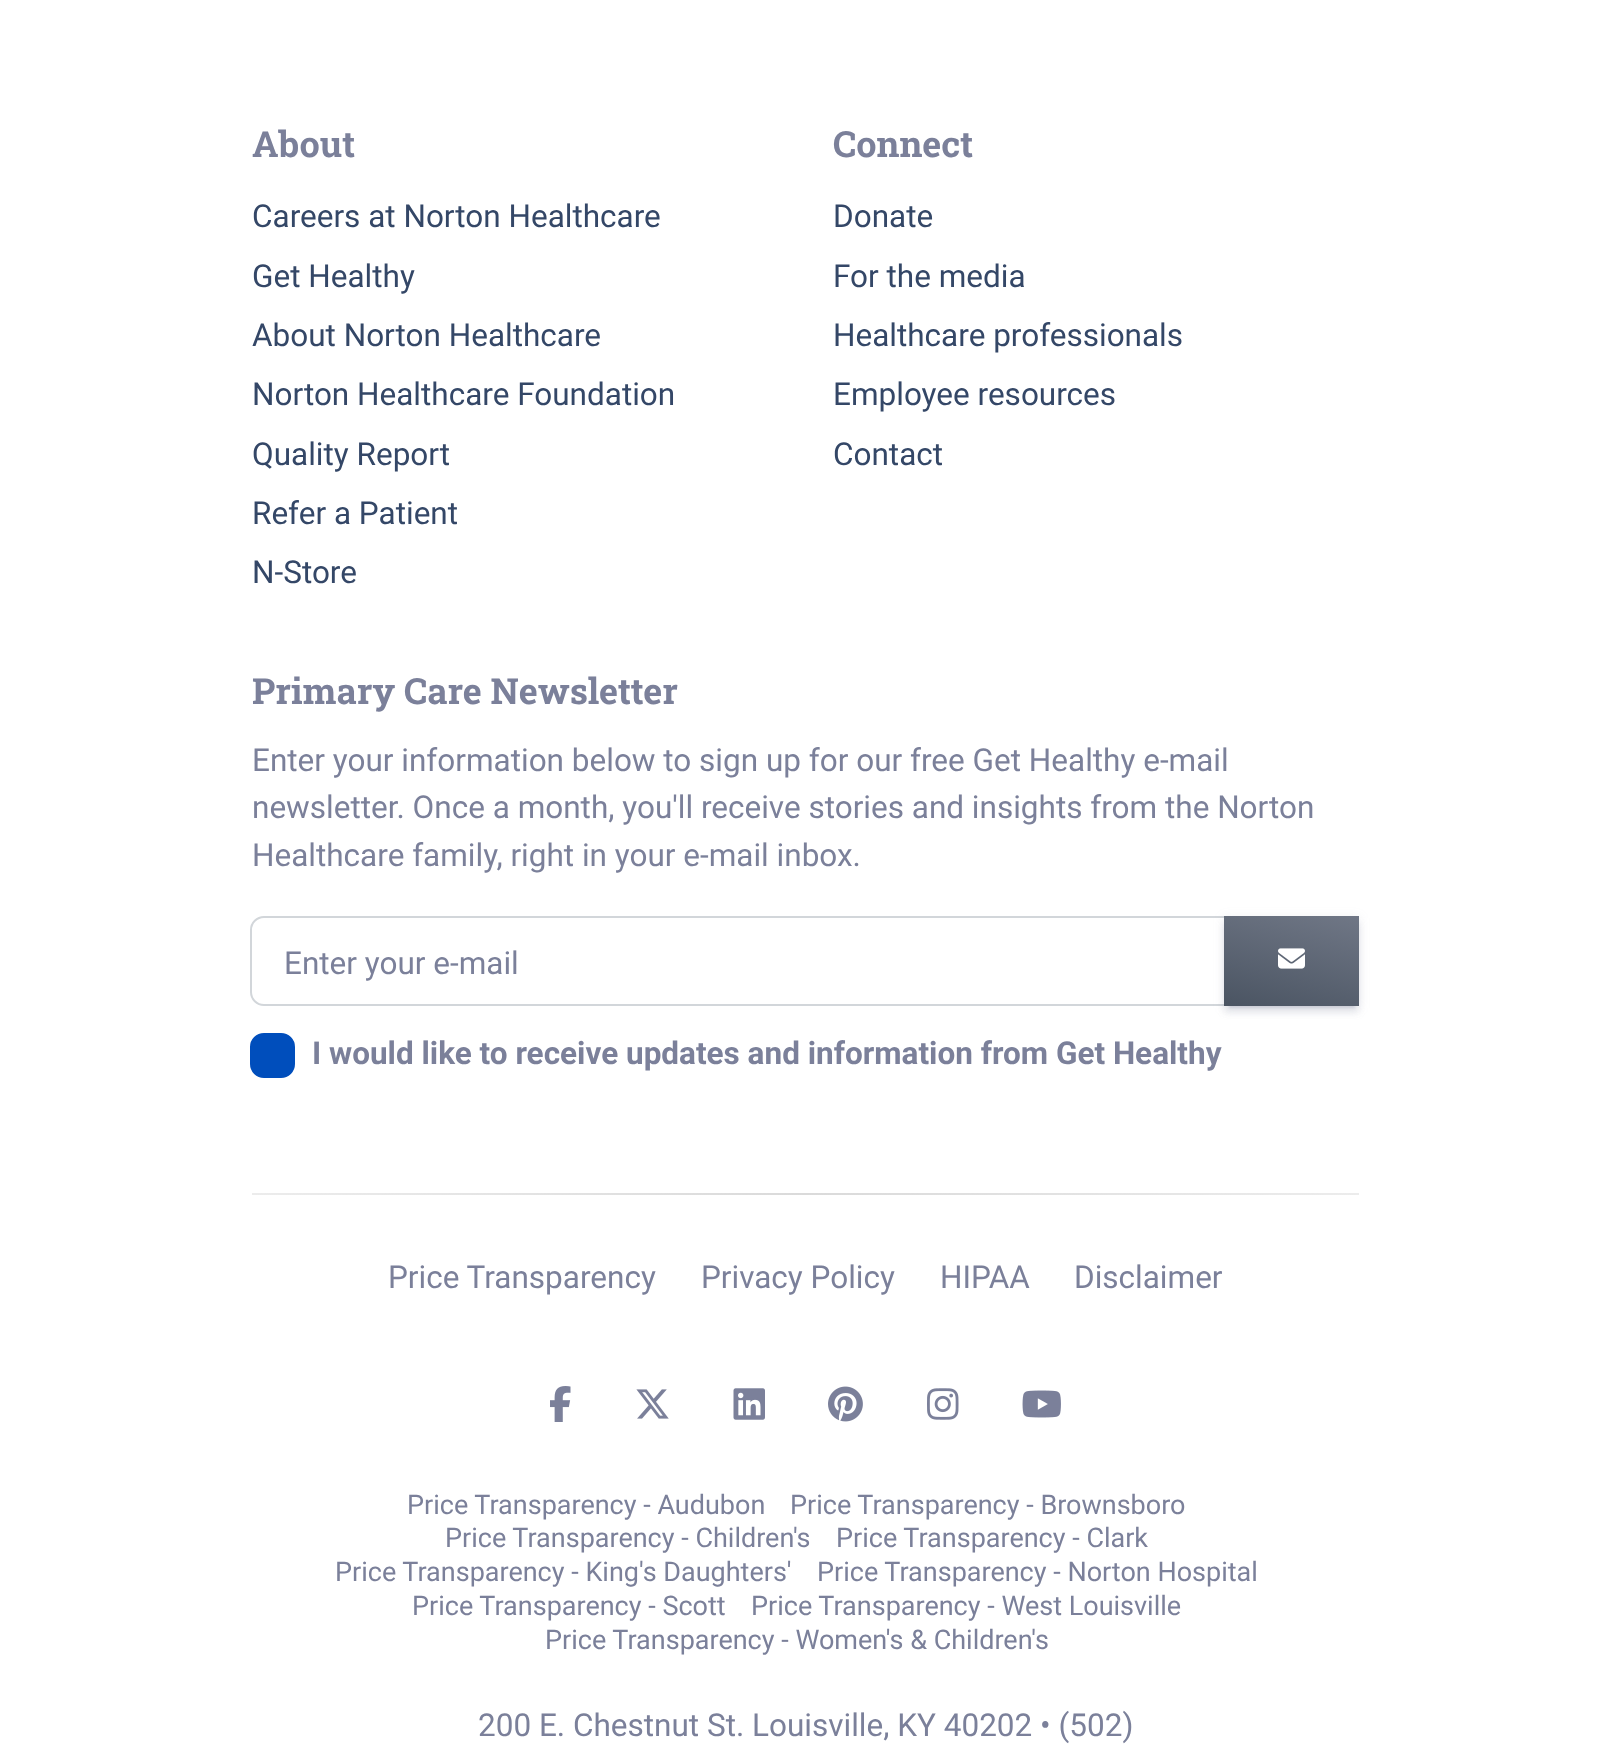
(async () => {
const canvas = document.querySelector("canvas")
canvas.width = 1609
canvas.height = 1751
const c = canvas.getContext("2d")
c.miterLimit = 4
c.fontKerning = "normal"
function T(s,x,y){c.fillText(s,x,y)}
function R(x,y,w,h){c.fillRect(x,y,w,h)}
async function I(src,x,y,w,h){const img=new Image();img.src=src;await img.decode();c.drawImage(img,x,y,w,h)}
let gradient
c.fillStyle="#fff"
R(0,0,1609,1751)
c.font="bold 36px Roboto Slab"
c.fillStyle="#7b809a"
T("About",252,157)
c.font="31.5px Roboto"
c.fillStyle="#344767"
T("Careers at Norton Healthcare",252,227)
T("Get Healthy",252,287)
T("About Norton Healthcare",252,346)
T("Norton Healthcare Foundation",252,405)
T("Quality Report",252,465)
T("Refer a Patient",252,524)
T("N-Store",252,583)
c.font="bold 36px Roboto Slab"
c.fillStyle="#7b809a"
T("Connect",833,157)
c.font="31.5px Roboto"
c.fillStyle="#344767"
T("Donate",833,227)
T("For the media",833,287)
T("Healthcare professionals",833,346)
T("Employee resources",833,405)
T("Contact",833,465)
c.font="bold 36px Roboto Slab"
c.fillStyle="#7b809a"
T("Primary Care Newsletter",252,704)
c.font="31.5px Roboto"
T("Enter your information below to sign up for our free Get Healthy e-mail",252,771)
T("newsletter. Once a month, you'll receive stories and insights from the Norton",252,818)
T("Healthcare family, right in your e-mail inbox.",252,866)
c.beginPath()
c.roundRect(251,917,974,88,[13,0,0,13])
c.strokeStyle="#d2d6da"
c.lineWidth=2
c.stroke()
c.fillStyle="#7b809a26"
c.filter="blur(5.5px)"
c.beginPath()
c.rect(1224,918,135,90)
c.fill()
c.filter="none"
c.fillStyle="#7b809a33"
c.filter="blur(1px)"
c.beginPath()
c.rect(1229,927,126,81)
c.fill()
c.filter="none"
c.fillStyle="#7b809a26"
c.filter="blur(3.5px)"
c.beginPath()
c.rect(1224,923,135,90)
c.fill()
c.filter="none"
gradient = c.createLinearGradient(1326,893,1290,1028)
gradient.addColorStop(0,"#747b8a")
gradient.addColorStop(1,"#495361")
c.fillStyle = gradient
R(1224,916,135,90)
await I("1.png",1278,948,27,21)
c.fillStyle="#7b809a"
T("Enter your e-mail",284,974)
c.fillStyle="#004ebc"
c.beginPath()
c.roundRect(251,1034,43,43,13)
c.fill()
c.strokeStyle="#004ebc"
c.stroke()
c.font="bold 31.5px Roboto"
c.fillStyle="#7b809a"
T("I would like to receive updates and information from Get Healthy",312,1064)
gradient = c.createLinearGradient(252,1194,1359,1194)
gradient.addColorStop(0,"#ececec")
gradient.addColorStop(.5,"#dadada")
gradient.addColorStop(1,"#ececec")
c.fillStyle = gradient
R(252,1193,1107,2)
c.font="31.5px Roboto"
c.fillStyle="#7b809a"
T("Price Transparency",388,1288)
T("Privacy Policy",701,1288)
T("HIPAA",940,1288)
T("Disclaimer",1074,1288)
await I("2.png",550,1386,21,36)
await I("3.png",636,1389,33,30)
await I("4.png",733,1388,32,32)
await I("5.png",828,1386,35,36)
await I("6.png",927,1388,32,32)
await I("7.png",1022,1390,39,28)
c.font="27px Roboto"
T("Price Transparency - Audubon",407,1514)
T("Price Transparency - Brownsboro",790,1514)
T("Price Transparency - Children's",445,1547)
T("Price Transparency - Clark",836,1547)
T("Price Transparency - King's Daughters'",335,1581)
T("Price Transparency - Norton Hospital",817,1581)
T("Price Transparency - Scott",412,1615)
T("Price Transparency - West Louisville",751,1615)
T("Price Transparency - Women's & Children's",545,1649)
c.font="31.5px Roboto"
T("200 E. Chestnut St. Louisville, KY 40202 • (502)",478,1736)
})()
